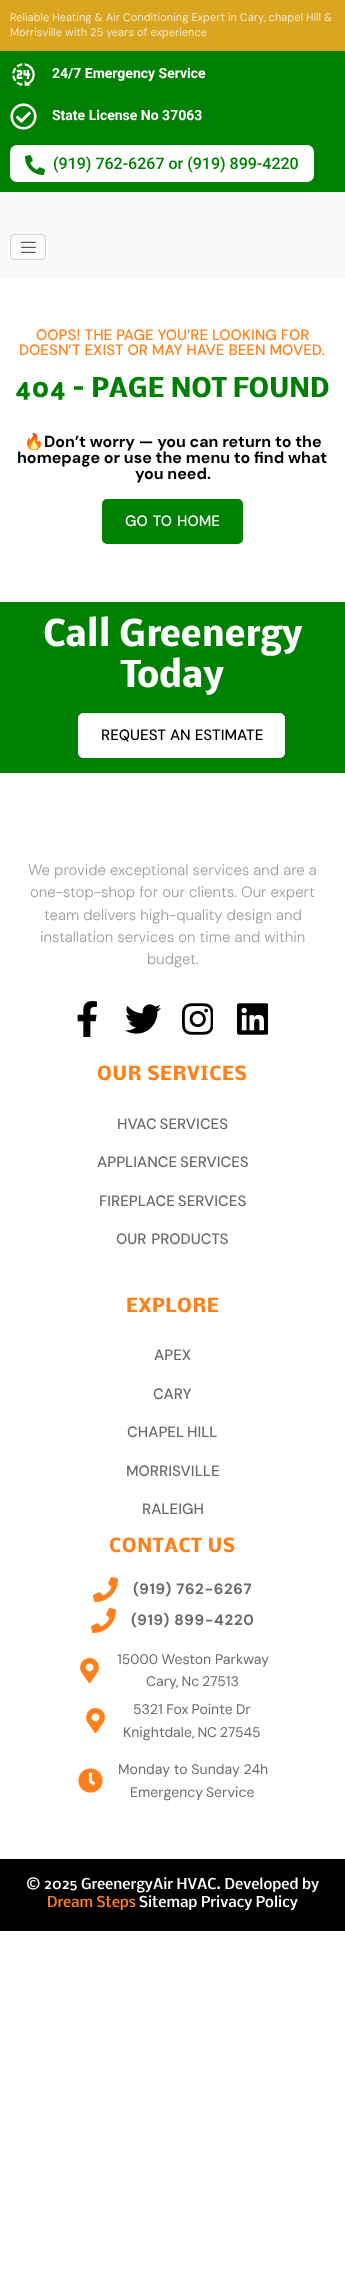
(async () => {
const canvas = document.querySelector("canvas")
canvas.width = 345
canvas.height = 2271
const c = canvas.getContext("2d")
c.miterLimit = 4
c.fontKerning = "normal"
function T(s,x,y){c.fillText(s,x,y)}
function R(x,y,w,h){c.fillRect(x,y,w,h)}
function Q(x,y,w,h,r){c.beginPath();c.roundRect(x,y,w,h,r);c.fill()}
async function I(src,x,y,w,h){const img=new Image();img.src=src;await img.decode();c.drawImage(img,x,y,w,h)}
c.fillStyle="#fff"
R(0,0,345,2271)
c.fillStyle="#daa521"
R(0,0,345,51)
c.font="11px DM Sans"
c.fillStyle="#f5e7c8"
T("Reliable Heating & Air Conditioning Expert in Cary, chapel Hill &",10,21)
T("Morrisville with 25 years of experience",10,36)
c.fillStyle="#008002"
R(0,51,345,141)
await I("1.png",12,63,23,23)
c.font="bold 14px Roboto"
c.fillStyle="#fff"
T("24/7 Emergency Service",52,78)
await I("2.png",10,103,27,27)
T("State License No 37063",52,120)
Q(10,145,304,37,7)
await I("3.png",25,155,20,20)
c.font="500 16px Roboto"
c.fillStyle="#008002"
T("(919) 762-6267 or (919) 899-4220",53,169)
c.fillStyle="#f8f9fa"
R(0,192,345,86)
c.beginPath()
c.roundRect(10.5,234.5,35,25,3.5)
c.strokeStyle="#d3d4d5"
c.stroke()
await I("4.png",20,241,16,12)
c.font="500 15px DM Sans"
c.fillStyle="#ff801a"
T("OOPS! THE PAGE YOU’RE LOOKING FOR",36,340)
T("DOESN’T EXIST OR MAY HAVE BEEN MOVED.",19,355)
c.font="bold 25px Nobile"
c.fillStyle="#008002"
T("404 – PAGE NOT FOUND",15,397)
c.font="bold 16px Noto Color Emoji"
c.fillStyle="#000"
T("🔥",24,447)
c.font="bold 16px DM Sans"
T("Don’t worry — you can return to the",44,447)
T("homepage or use the menu to find what",17,463)
T("you need.",135,479)
c.fillStyle="#008002"
Q(102,499,141,45,5)
c.wordSpacing="1px"
c.font="500 15px DM Sans"
c.fillStyle="#fff"
T("GO TO HOME",125,526)
c.fillStyle="#008002"
R(0,602,345,171)
c.wordSpacing="0px"
c.font="bold 34px Nobile"
c.fillStyle="#fff"
T("Call Greenergy",43,646)
T("Today",121,687)
c.beginPath()
c.roundRect(78.5,713.5,206,44,4.5)
c.fill()
c.strokeStyle="#fff"
c.stroke()
c.font="500 15px DM Sans"
c.fillStyle="#000"
T("REQUEST AN ESTIMATE",101,740)
c.font="300 15px DM Sans"
c.fillStyle="#9e9d9d"
T("We provide exceptional services and are a",28,875)
T("one-stop-shop for our clients. Our expert",30,897)
T("team delivers high-quality design and",44,920)
T("installation services on time and within",40,942)
T("budget.",147,964)
await I("5.png",77,1001,20,36)
await I("6.png",125,1004,36,30)
await I("7.png",182,1003,31,32)
await I("8.png",237,1003,31,32)
c.letterSpacing="0.75px"
c.font="bold 18px Nobile"
c.fillStyle="#ff801a"
T("OUR SERVICES",97,1080)
c.letterSpacing="0px"
c.wordSpacing="-1px"
c.font="500 15px DM Sans"
c.fillStyle="#6a6a6a"
T("HVAC SERVICES",117,1129)
T("APPLIANCE SERVICES",97,1167)
T("FIREPLACE SERVICES",99,1206)
c.wordSpacing="1px"
T("OUR PRODUCTS",116,1244)
c.letterSpacing="0.75px"
c.wordSpacing="0px"
c.font="bold 18px Nobile"
c.fillStyle="#ff801a"
T("EXPLORE",126,1312)
c.letterSpacing="0px"
c.font="500 15px DM Sans"
c.fillStyle="#6a6a6a"
T("APEX",154,1360)
T("CARY",153,1399)
c.wordSpacing="-1px"
T("CHAPEL HILL",127,1437)
c.wordSpacing="0px"
T("MORRISVILLE",126,1476)
T("RALEIGH",142,1514)
c.letterSpacing="0.75px"
c.font="bold 18px Nobile"
c.fillStyle="#ff801a"
T("CONTACT US",109,1552)
await I("9.png",93,1577,25,25)
c.font="bold 15px 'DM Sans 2'"
c.fillStyle="#6a6a6a"
T("(919) 762-6267",133,1594)
await I("9.png",91,1608,25,25)
T("(919) 899-4220",131,1625)
await I("10.png",80,1658,19,25)
c.letterSpacing="0px"
c.font="14px DM Sans"
T("15000 Weston Parkway",117,1664)
c.wordSpacing="-1px"
T("Cary, Nc 27513",146,1686)
await I("10.png",86,1708,19,25)
c.wordSpacing="-0.5px"
T("5321 Fox Pointe Dr",133,1714)
c.wordSpacing="-1px"
T("Knightdale, NC 27545",123,1737)
await I("11.png",78,1768,25,25)
c.wordSpacing="0px"
T("Monday to Sunday 24h",118,1774)
c.wordSpacing="-1px"
T("Emergency Service",130,1797)
c.fillStyle="#000"
R(0,1859,345,72)
c.wordSpacing="0px"
c.font="500 14px Nobile"
c.fillStyle="#fff"
T("© 2025 GreenergyAir HVAC. Developed by",26,1889)
c.fillStyle="#ff801a"
T("Dream Steps",47,1907)
c.fillStyle="#fff"
T("Sitemap Privacy Policy",139,1907)
})()
